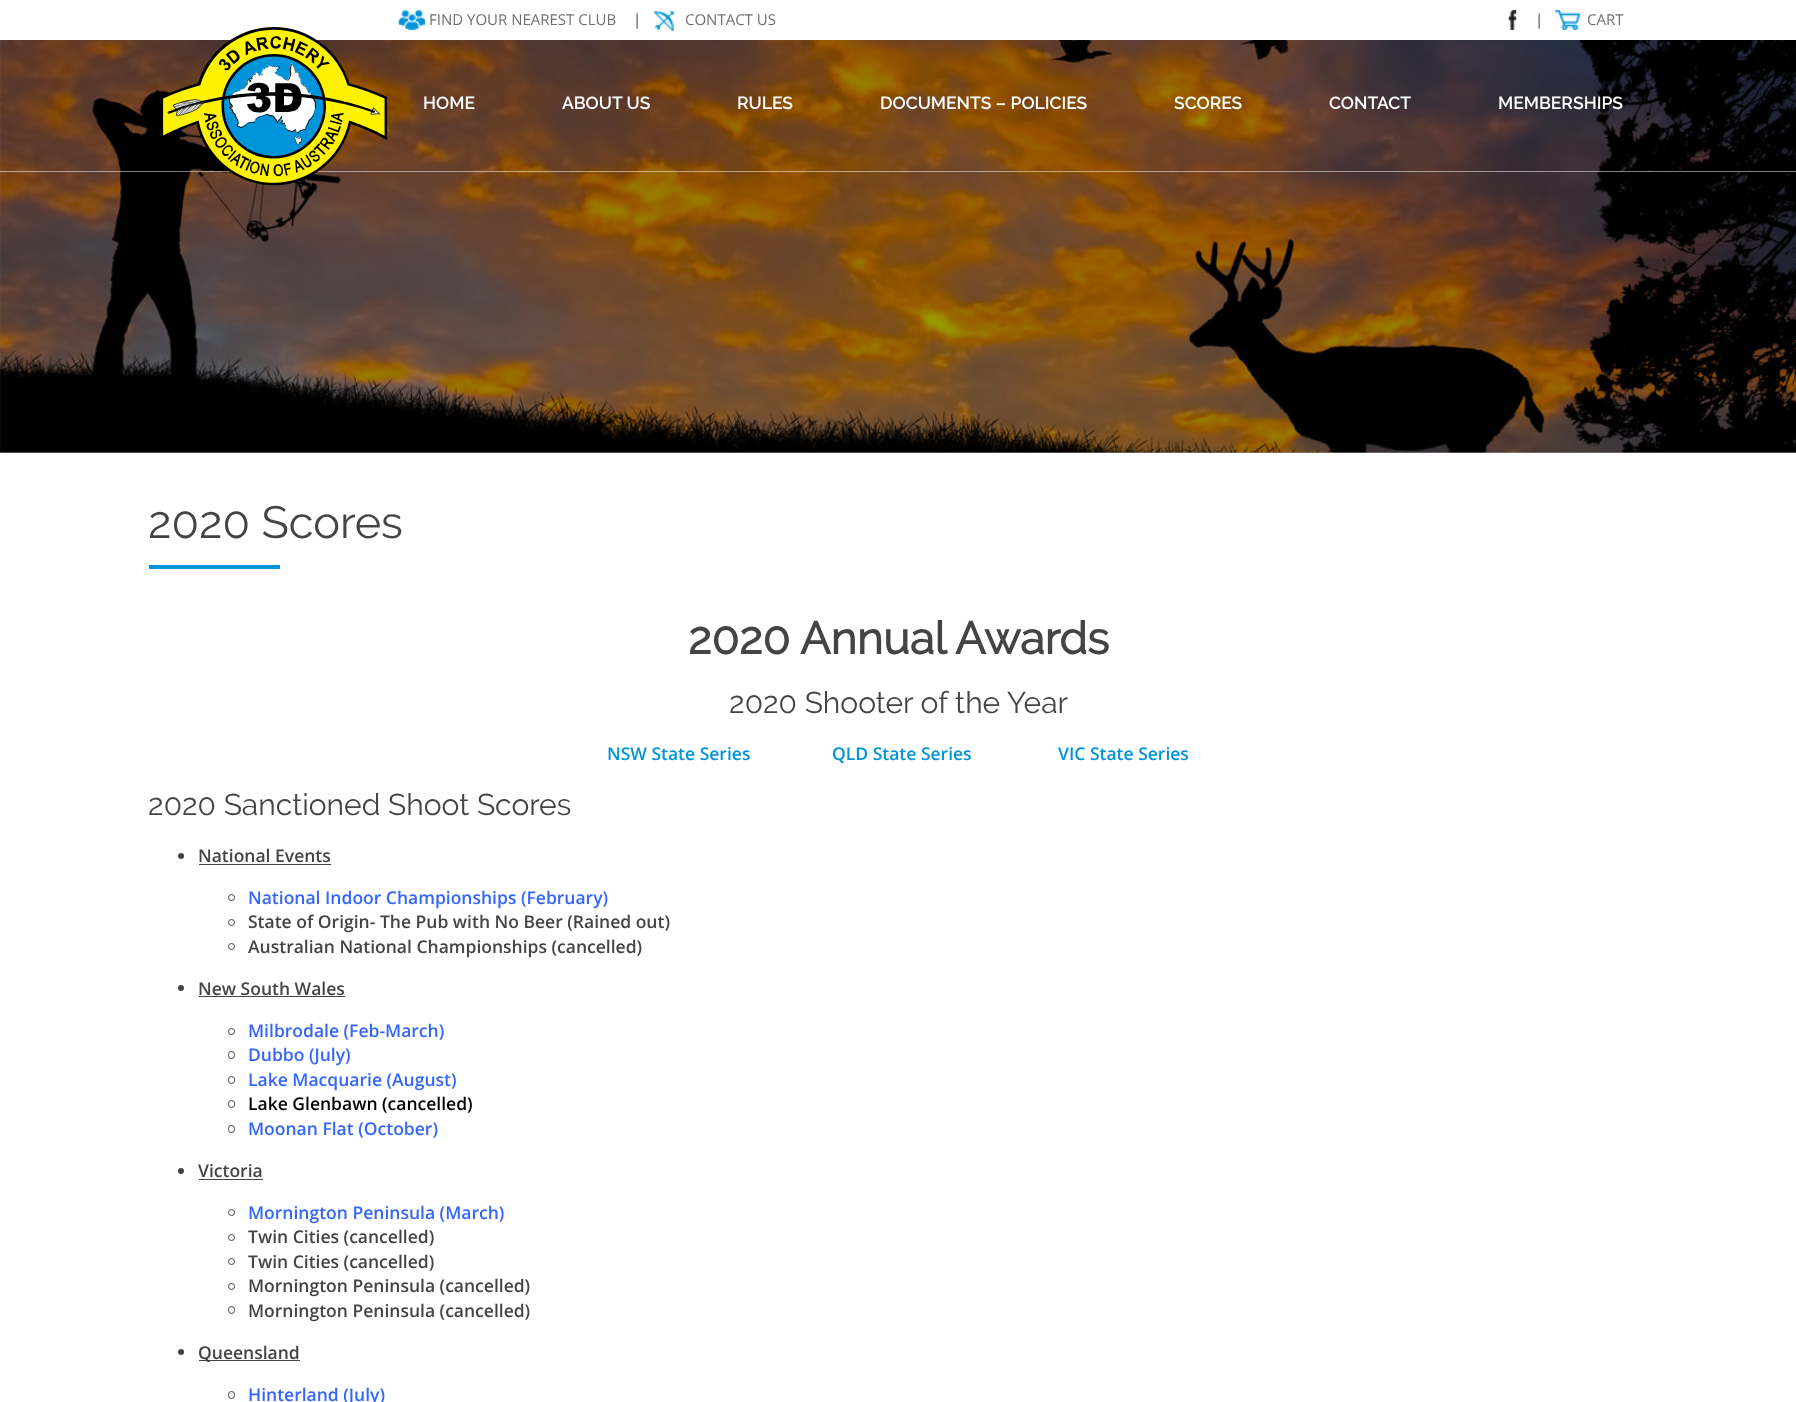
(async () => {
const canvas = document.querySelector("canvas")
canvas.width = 1796
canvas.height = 1402
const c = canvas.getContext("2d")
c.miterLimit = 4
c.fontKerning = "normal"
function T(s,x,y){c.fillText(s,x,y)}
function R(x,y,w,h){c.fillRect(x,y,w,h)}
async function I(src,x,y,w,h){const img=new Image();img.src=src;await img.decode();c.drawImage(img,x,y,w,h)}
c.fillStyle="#fff"
R(0,0,1796,1402)
c.fillStyle="#999"
R(0,452,1796,1)
await I("6.png",0,40,1796,413)
c.fillStyle="#ffffff80"
R(0,171,1796,1)
await I("1.png",398,10,27,20)
c.font="15px Open Sans"
c.fillStyle="#707070"
T("FIND YOUR NEAREST CLUB",429,25)
c.letterSpacing="12px"
c.fillStyle="#444"
T("|",633,25)
await I("2.png",653,11,21,21)
c.letterSpacing="0px"
c.fillStyle="#707070"
T("CONTACT US",685,25)
await I("3.png",1508,10,9,20)
c.letterSpacing="12px"
c.fillStyle="#444"
T("|",1535,25)
await I("4.png",1555,10,25,20)
c.letterSpacing="0px"
c.fillStyle="#707070"
T("CART",1587,25)
await I("5.png",163,27,224,159)
c.font="600 17.5px Raleway"
c.fillStyle="#fff"
T("HOME",423,109)
T("ABOUT US",562,109)
T("RULES",737,109)
T("DOCUMENTS – POLICIES",880,109)
T("SCORES",1174,109)
T("CONTACT",1329,109)
T("MEMBERSHIPS",1498,109)
c.font="45px Raleway"
c.fillStyle="#444"
T("2020 Scores",148,538)
c.fillStyle="#0094da"
R(149,565,131,4)
c.font="bold 45px Raleway"
c.fillStyle="#444"
T("2020 Annual Awards",688,654)
c.font="30px Raleway"
T("2020 Shooter of the Year",729,713)
c.font="600 17.5px Open Sans"
c.fillStyle="#0094da"
T("NSW State Series",607,760)
T("QLD State Series",832,760)
T("VIC State Series",1058,760)
c.font="30px Raleway"
c.fillStyle="#444"
T("2020 Sanctioned Shoot Scores",148,815)
c.beginPath()
c.arc(181,856,3,0,7)
c.fill()
c.font="600 17.5px Open Sans"
T("National Events",198,862)
R(199,864,132,1)
c.beginPath()
c.arc(231.5,897.5,3,0,7)
c.strokeStyle="#444"
c.stroke()
c.fillStyle="#36f"
T("National Indoor Championships (February)",248,904)
c.beginPath()
c.arc(231.5,922.5,3,0,7)
c.stroke()
c.fillStyle="#444"
T("State of Origin- The Pub with No Beer (Rained out)",248,928)
c.beginPath()
c.arc(231.5,946.5,3,0,7)
c.stroke()
T("Australian National Championships (cancelled)",248,953)
c.beginPath()
c.arc(181,988,3,0,7)
c.fill()
T("New South Wales",198,995)
R(199,996,146,1)
c.beginPath()
c.arc(231.5,1031.5,3,0,7)
c.stroke()
c.fillStyle="#36f"
T("Milbrodale (Feb-March)",248,1037)
c.beginPath()
c.roundRect(228.5,1051.5,6,7,3)
c.stroke()
T("Dubbo (July)",248,1061)
c.beginPath()
c.roundRect(228.5,1076.5,6,7,3)
c.stroke()
T("Lake Macquarie (August)",248,1086)
c.beginPath()
c.roundRect(228.5,1100.5,6,7,3)
c.stroke()
c.fillStyle="#000"
T("Lake Glenbawn (cancelled)",248,1110)
c.beginPath()
c.roundRect(228.5,1125.5,6,7,3)
c.stroke()
c.fillStyle="#36f"
T("Moonan Flat (October)",248,1135)
c.fillStyle="#444"
c.beginPath()
c.arc(181,1171,3,0,7)
c.fill()
T("Victoria",198,1177)
R(199,1179,64,1)
c.beginPath()
c.arc(231.5,1212.5,3,0,7)
c.stroke()
c.fillStyle="#36f"
T("Mornington Peninsula (March)",248,1219)
c.beginPath()
c.arc(231.5,1237.5,3,0,7)
c.stroke()
c.fillStyle="#444"
T("Twin Cities (cancelled)",248,1243)
c.beginPath()
c.arc(231.5,1261.5,3,0,7)
c.stroke()
T("Twin Cities (cancelled)",248,1268)
c.beginPath()
c.arc(231.5,1286.5,3,0,7)
c.stroke()
T("Mornington Peninsula (cancelled)",248,1292)
c.beginPath()
c.roundRect(228.5,1306.5,6,7,3)
c.stroke()
T("Mornington Peninsula (cancelled)",248,1317)
c.beginPath()
c.arc(181,1352,3,0,7)
c.fill()
R(199,1360,101,1)
T("Queensland",198,1359)
c.beginPath()
c.roundRect(228.5,1391.5,6,7,3)
c.stroke()
c.fillStyle="#36f"
T("Hinterland (July)",248,1401)
})()
